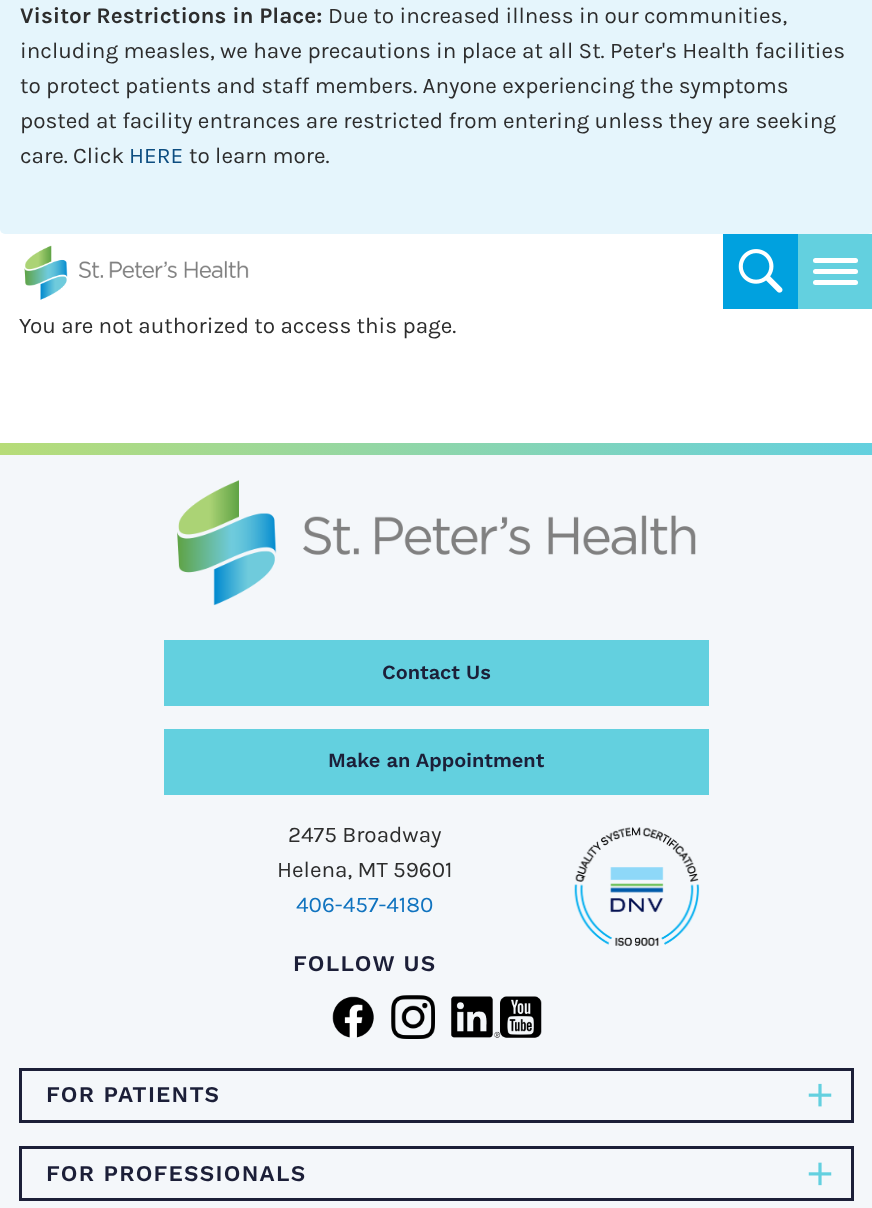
(async () => {
const canvas = document.querySelector("canvas")
canvas.width = 872
canvas.height = 1208
const c = canvas.getContext("2d")
c.miterLimit = 4
c.fontKerning = "normal"
function T(s,x,y){c.fillText(s,x,y)}
function R(x,y,w,h){c.fillRect(x,y,w,h)}
function Q(x,y,w,h,r){c.beginPath();c.roundRect(x,y,w,h,r);c.fill()}
async function I(src,x,y,w,h){const img=new Image();img.src=src;await img.decode();c.drawImage(img,x,y,w,h)}
let gradient
c.fillStyle="#fff"
R(0,0,872,1208)
c.fillStyle="#e5f5fc"
Q(0,-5,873,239,5)
c.font="bold 22.5px Karla"
c.fillStyle="#2d2d2d"
T("Visitor Restrictions in Place:",20,23)
c.font="22.5px Karla"
T("Due to increased illness in our communities,",328,23)
T("including measles, we have precautions in place at all St. Peter's Health facilities",20,58)
T("to protect patients and staff members. Anyone experiencing the symptoms",20,93)
T("posted at facility entrances are restricted from entering unless they are seeking",20,128)
T("care. Click",20,163)
c.fillStyle="#0c4d80"
T("HERE",129,163)
c.fillStyle="#2d2d2d"
T("to learn more.",189,163)
await I("1.png",24,245,225,55)
c.fillStyle="#00a1df"
R(723,234,75,75)
await I("2.png",738,249,45,44)
c.fillStyle="#63d0df"
R(798,234,74,75)
c.fillStyle="#fff"
Q(813,258,45,5,2.5)
Q(813,269,45,5,2.5)
Q(813,280,45,5,2.5)
c.fillStyle="#2d2d2d"
T("You are not authorized to access this page.",19,333)
c.fillStyle="#f4f7fa"
R(0,455,872,753)
gradient = c.createLinearGradient(0,455,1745,455)
gradient.addColorStop(0,"#b7dc78")
gradient.addColorStop(.5,"#63d0df")
gradient.addColorStop(1,"#00a1df")
c.fillStyle = gradient
R(0,443,872,12)
await I("3.png",177,480,519,126)
c.fillStyle="#63d0df"
R(164,640,545,66)
c.font="600 20px Work Sans"
c.fillStyle="#1c1f38"
T("Contact Us",382,679)
c.fillStyle="#63d0df"
R(164,729,545,66)
c.fillStyle="#1c1f38"
T("Make an Appointment",328,767)
c.font="22.5px Karla"
c.fillStyle="#2d2d2d"
T("2475 Broadway",288,842)
await I("4.png",574,827,126,119)
T("Helena, MT 59601",277,877)
c.fillStyle="#1073bf"
T("406-457-4180",296,912)
c.letterSpacing="1.25px"
c.font="600 22.5px Work Sans"
c.fillStyle="#1c1f38"
T("FOLLOW US",293,971)
await I("5.png",332,996,42,42)
await I("6.png",391,995,44,44)
await I("7.png",451,996,49,42)
await I("8.png",500,996,42,42)
c.strokeStyle="#1c1f38"
c.lineWidth=3
c.strokeRect(20.5,1069.5,832,52)
T("FOR PATIENTS",46,1102)
await I("9.png",808,1083,24,24)
c.strokeRect(20.5,1147.5,832,52)
T("FOR PROFESSIONALS",46,1181)
await I("10.png",808,1162,24,24)
})()
